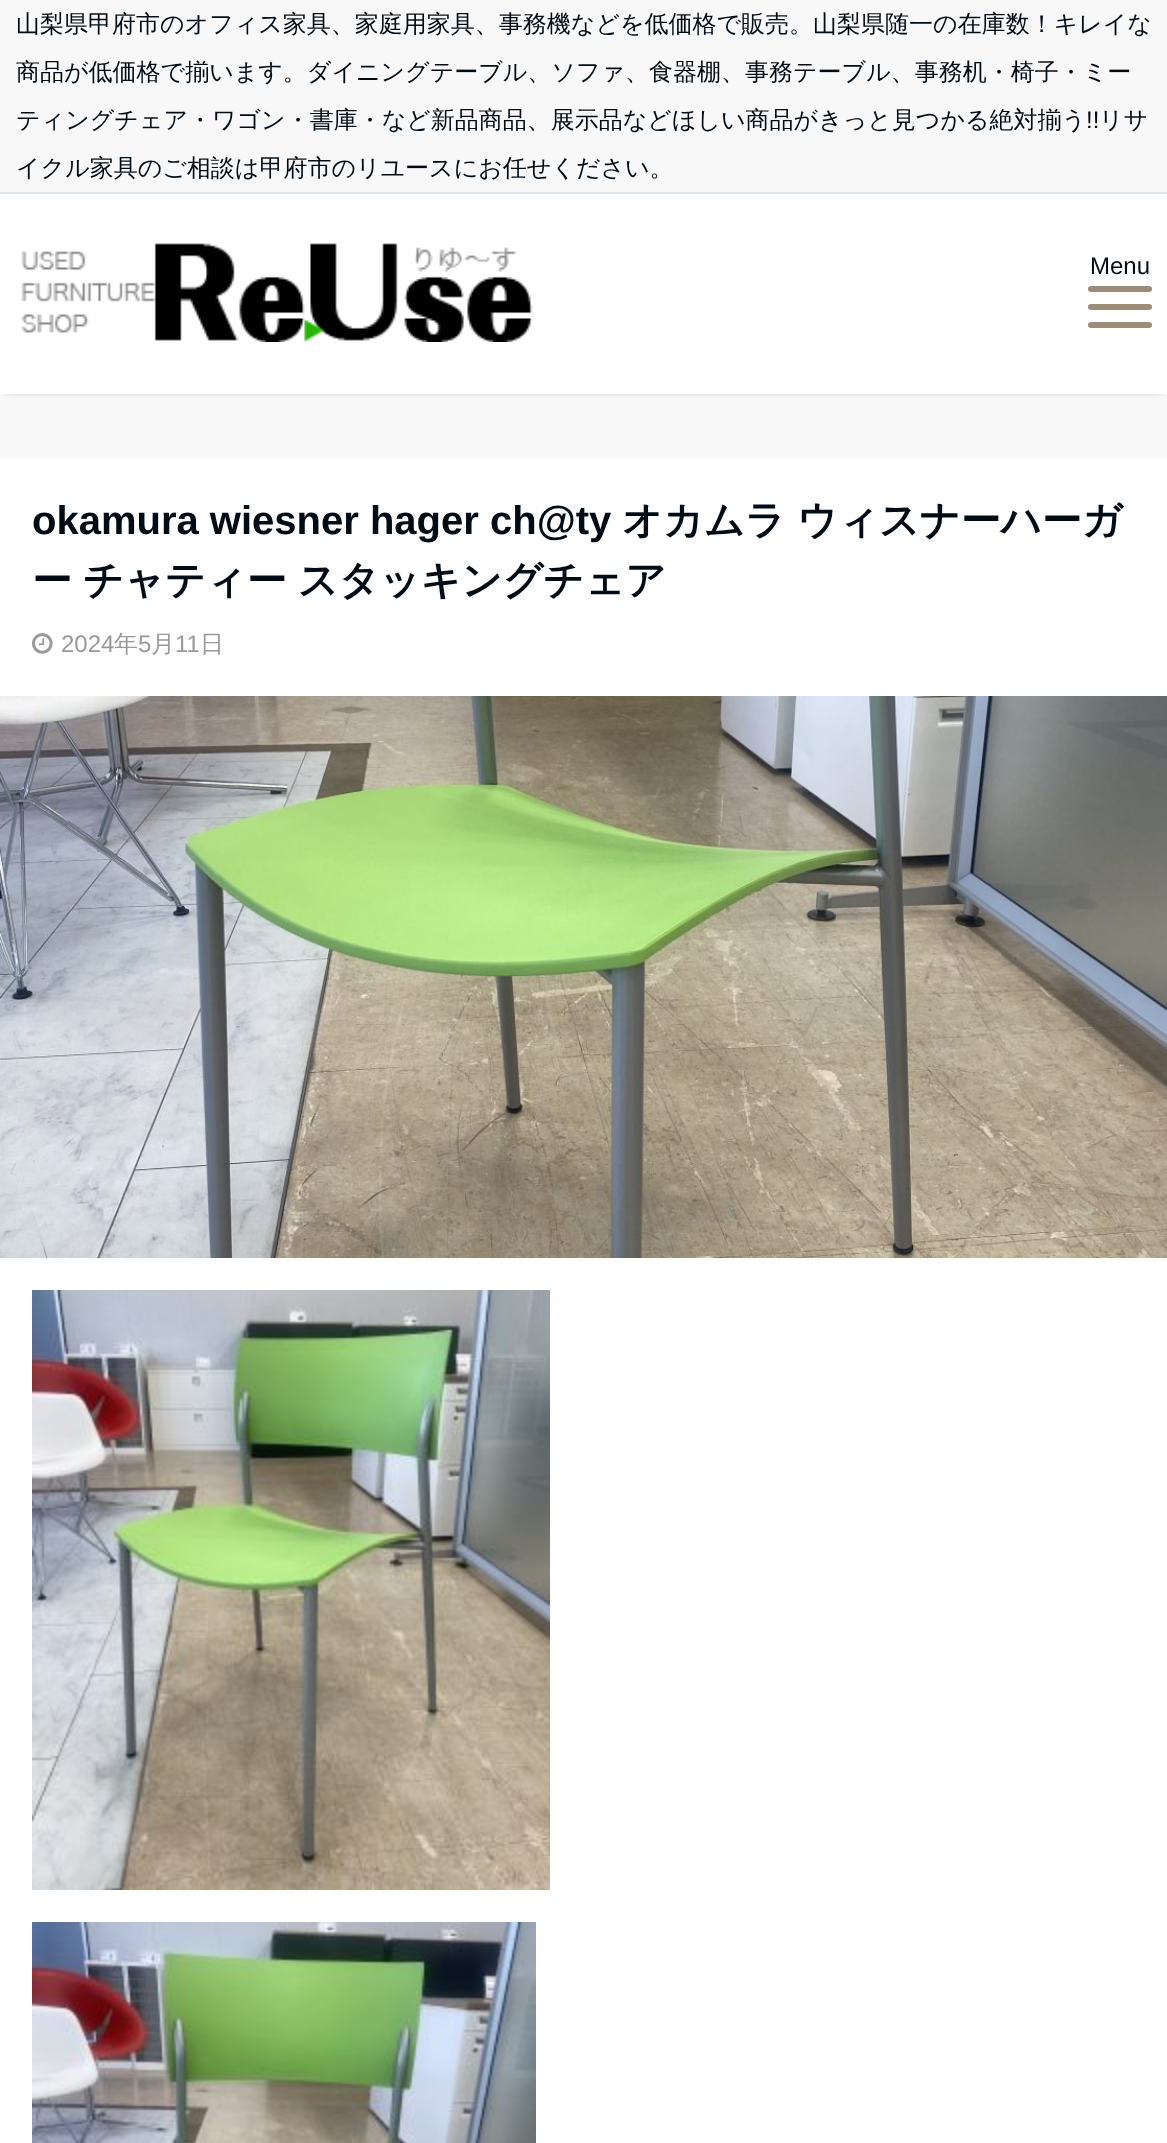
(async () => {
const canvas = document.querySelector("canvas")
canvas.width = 1167
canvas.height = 2143
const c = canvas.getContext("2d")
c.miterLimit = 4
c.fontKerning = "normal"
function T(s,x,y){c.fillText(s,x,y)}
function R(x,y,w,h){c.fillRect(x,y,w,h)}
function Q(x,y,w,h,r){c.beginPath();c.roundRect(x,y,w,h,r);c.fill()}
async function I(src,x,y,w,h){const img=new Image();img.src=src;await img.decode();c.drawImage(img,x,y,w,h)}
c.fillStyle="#f8f8f8"
R(0,0,1167,2143)
c.fillStyle="#e2e5e8"
R(0,192,1167,2)
c.font="500 24px WenQuanYi Zen Hei"
c.fillStyle="#000c15"
T("山梨県甲府市のオフィス家具、家庭用家具、事務機などを低価格で販売。山梨県随一の在庫数！キレイな",16,32)
T("商品が低価格で揃います。ダイニングテーブル、ソファ、食器棚、事務テーブル、事務机・椅子・ミー",16,80)
T("ティングチェア・ワゴン・書庫・など新品商品、展示品などほしい商品がきっと見つかる絶対揃う",16,128)
c.font="24px Liberation Sans"
T("!!",1086,128)
c.font="500 24px WenQuanYi Zen Hei"
T("リサ",1099,128)
T("イクル家具のご相談は甲府市のリユースにお任せください。",16,176)
c.fillStyle="#0000004d"
c.filter="blur(3px)"
c.beginPath()
c.rect(6,204,1156,188)
c.fill()
c.filter="none"
c.fillStyle="#fff"
R(0,194,1167,200)
await I("1.png",21,243,512,99)
c.font="24px Liberation Sans"
c.fillStyle="#000c15"
T("Menu",1090,274)
c.fillStyle="#9b8d77"
Q(1088,286,64,6,3)
Q(1088,304,64,6,3)
Q(1088,322,64,6,3)
c.fillStyle="#fff"
R(0,458,1167,1685)
c.font="bold 40px Liberation Sans"
c.fillStyle="#000c15"
T("okamura wiesner hager ch@ty",32,534)
c.font="bold 40px WenQuanYi Zen Hei"
T("オカムラ",622,534)
T("ウィスナーハーガ",797,534)
c.wordSpacing="-1px"
T("ー チャティー スタッキングチェア",32,594)
await I("2.png",32,633,21,21)
c.wordSpacing="0px"
c.font="24px Liberation Sans"
c.fillStyle="#999"
T("2024",61,652)
c.font="500 24px WenQuanYi Zen Hei"
T("年",114,652)
c.font="24px Liberation Sans"
T("5",138,652)
c.font="500 24px WenQuanYi Zen Hei"
T("月",151,652)
c.font="24px Liberation Sans"
T("11",175,652)
c.font="500 24px WenQuanYi Zen Hei"
T("日",200,652)
await I("3.png",0,696,1167,562)
await I("4.png",32,1290,518,600)
await I("5.png",32,1922,504,221)
})()
